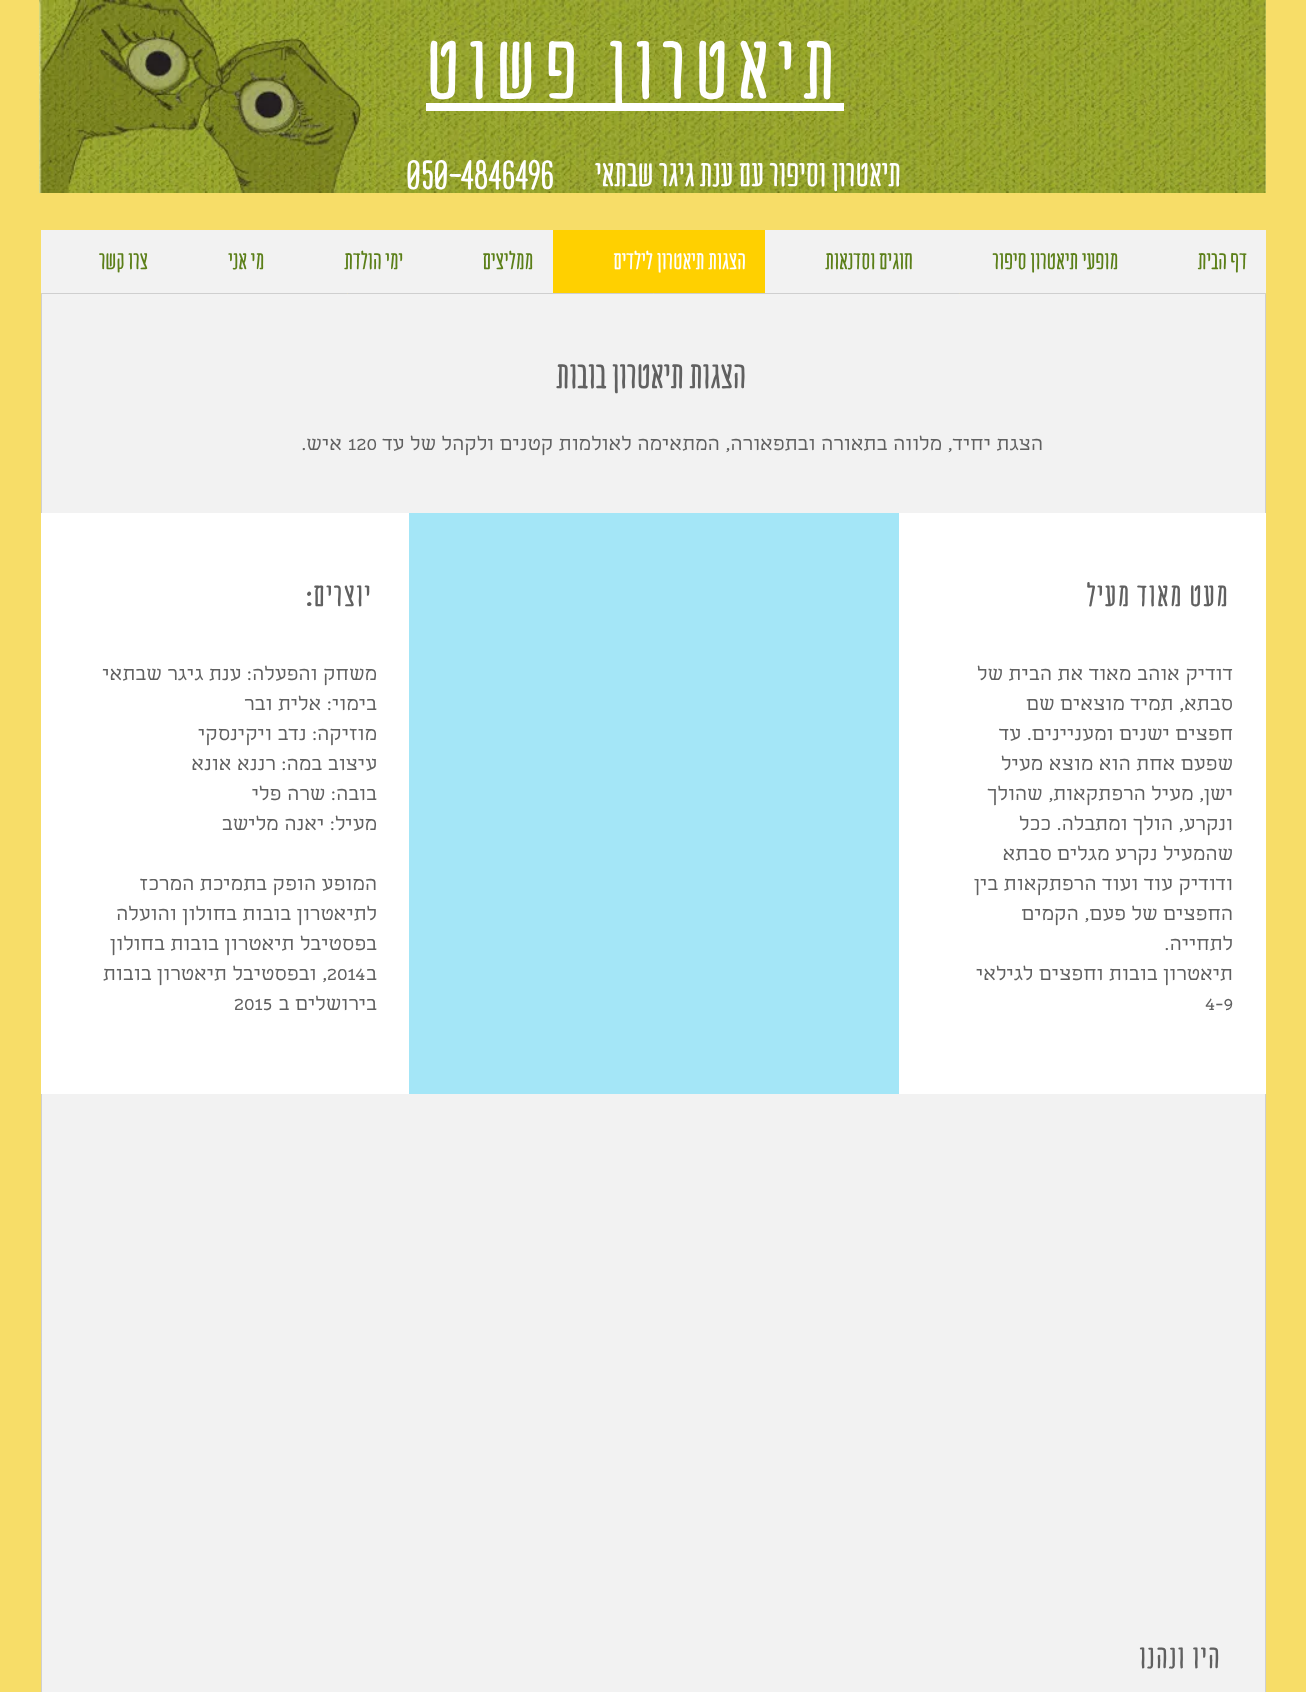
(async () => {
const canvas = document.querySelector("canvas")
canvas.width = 1306
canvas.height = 1692
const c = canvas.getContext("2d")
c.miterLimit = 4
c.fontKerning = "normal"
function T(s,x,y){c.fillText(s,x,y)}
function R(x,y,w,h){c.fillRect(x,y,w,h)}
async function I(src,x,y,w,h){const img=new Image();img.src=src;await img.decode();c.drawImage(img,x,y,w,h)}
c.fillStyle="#f7dd68"
R(0,0,1306,1692)
await I("1.png",39,0,1227,193)
c.fillStyle="#fff"
R(426,103,418,8)
c.letterSpacing="9px"
c.direction="rtl"
c.font="90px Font"
T("תיאטרון פשוט",844,98)
c.letterSpacing="0px"
c.font="36.25px Font"
T("תיאטרון וסיפור עם ענת גיגר שבתאי",901,186)
c.direction="ltr"
c.font="41px Font"
T("050-4846496",406,189)
c.fillStyle="#f2f2f2"
R(41,230,1225,63)
c.direction="rtl"
c.font="25px Font"
c.fillStyle="#5b7f18"
T("דף הבית",1247,269)
T("מופעי תיאטרון סיפור",1118,269)
T("חוגים וסדנאות",913,269)
c.fillStyle="#ffd000"
R(553,230,212,63)
c.fillStyle="#fff"
T("הצגות תיאטרון לילדים",746,269)
c.fillStyle="#5b7f18"
T("ממליצים",533,269)
T("ימי הולדת",403,269)
T("מי אני",264,269)
T("צרו קשר",148,269)
c.fillStyle="#f2f2f2"
c.beginPath()
c.rect(41.5,293.5,1224,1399)
c.fill()
c.strokeStyle="#cfcfcf"
c.stroke()
c.font="37.5px Font"
c.fillStyle="#606060"
T("הצגות תיאטרון בובות",746,388)
c.font="21.25px 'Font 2'"
T("הצגת יחיד, מלווה בתאורה ובתפאורה, המתאימה לאולמות קטנים ולקהל של עד",1043,450)
c.direction="ltr"
T("120",348,450)
c.direction="rtl"
T("איש.",342,450)
c.fillStyle="#fff"
R(899,513,367,581)
c.letterSpacing="1.6px"
c.font="32.5px Font"
c.fillStyle="#606060"
T("מעט מאוד מעיל",1229,606)
c.letterSpacing="0px"
c.font="21.25px 'Font 2'"
T("דודיק אוהב מאוד את הבית של",1233,680)
T("סבתא, תמיד מוצאים שם",1233,710)
T("חפצים ישנים ומעניינים. עד",1233,740)
T("שפעם אחת הוא מוצא מעיל",1233,770)
T("ישן, מעיל הרפתקאות, שהולך",1233,800)
T("ונקרע, הולך ומתבלה. ככל",1233,830)
T("שהמעיל נקרע מגלים סבתא",1233,860)
T("ודודיק עוד ועוד הרפתקאות בין",1233,890)
T("החפצים של פעם, הקמים",1233,920)
T("לתחייה.",1233,950)
T("תיאטרון בובות וחפצים לגילאי",1233,980)
c.direction="ltr"
T("4-9",1205,1010)
c.fillStyle="#a4e6f7"
R(409,513,490,581)
c.fillStyle="#fff"
R(41,513,368,581)
c.letterSpacing="1.6px"
c.direction="rtl"
c.font="32.5px Font"
c.fillStyle="#606060"
T("יוצרים",372,606)
c.direction="ltr"
T(":",306,606)
c.letterSpacing="0px"
c.direction="rtl"
c.font="21.25px 'Font 2'"
T("משחק והפעלה: ענת גיגר שבתאי",377,680)
T("בימוי: אלית ובר",377,710)
T("מוזיקה: נדב ויקינסקי",377,740)
T("עיצוב במה: רננא אונא",377,770)
T("בובה: שרה פלי",377,800)
T("מעיל: יאנה מלישב",377,830)
T("המופע הופק בתמיכת המרכז",377,890)
T("לתיאטרון בובות בחולון והועלה",377,920)
T("בפסטיבל תיאטרון בובות בחולון",377,950)
T("ב",377,980)
c.direction="ltr"
T("2014",327,980)
c.direction="rtl"
T(", ובפסטיבל תיאטרון בובות",327,980)
T("בירושלים ב",377,1010)
c.direction="ltr"
T("2015",234,1010)
c.letterSpacing="1.6px"
c.direction="rtl"
c.font="32.5px Font"
T("היו ונהנו",1221,1668)
})()
